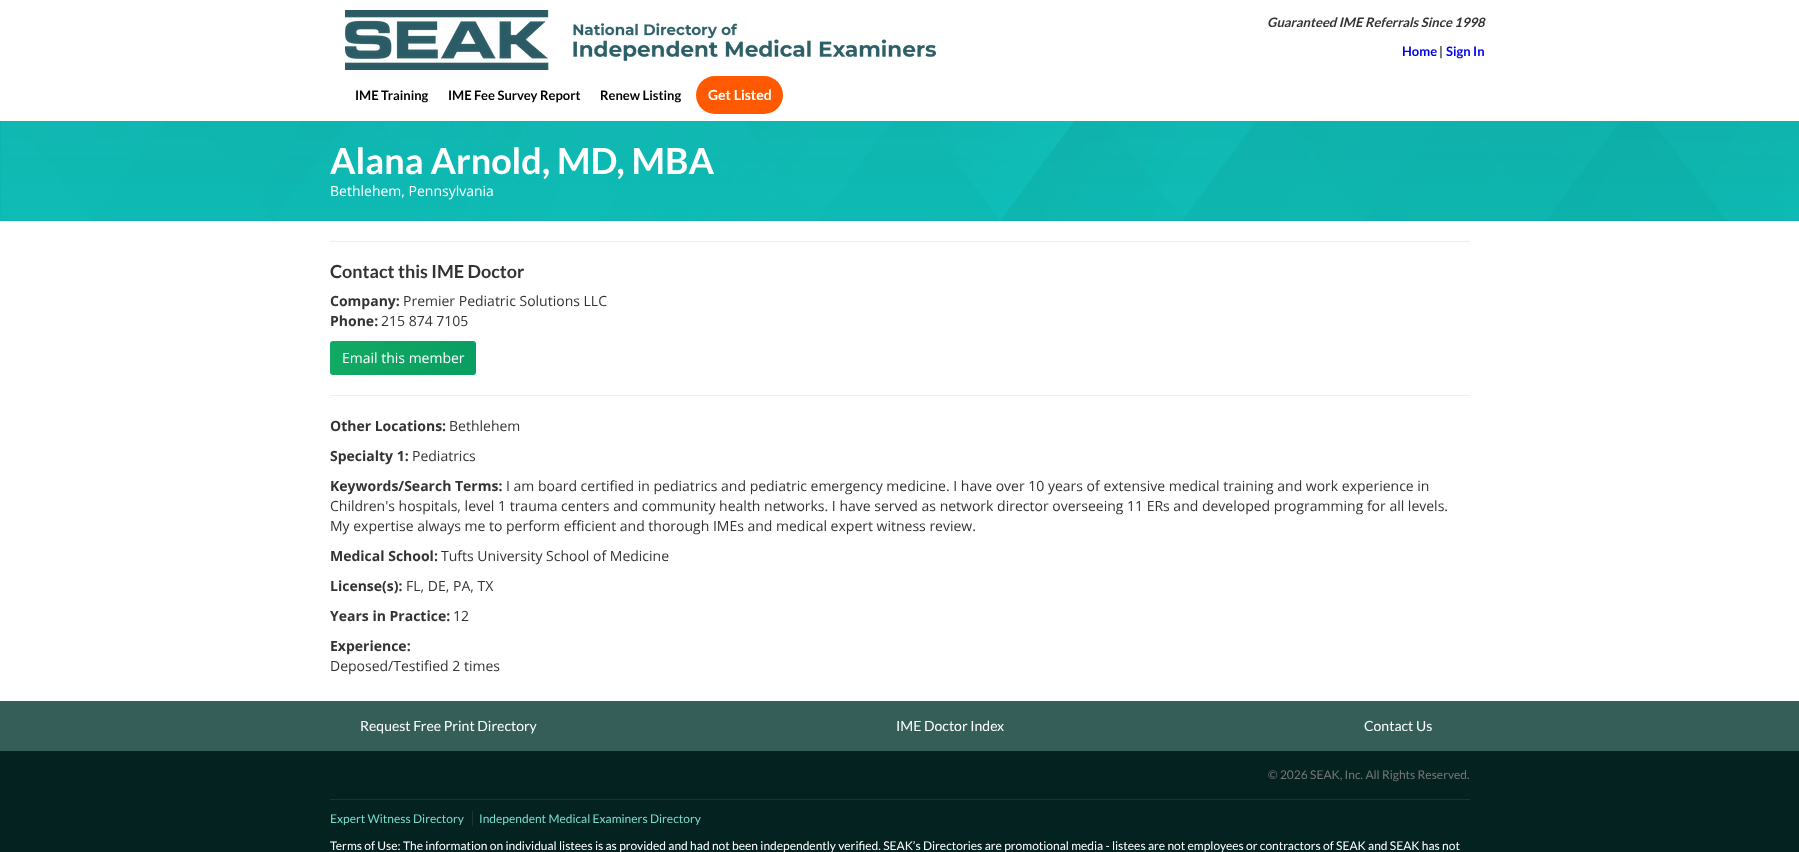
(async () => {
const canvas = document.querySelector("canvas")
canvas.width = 1799
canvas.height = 852
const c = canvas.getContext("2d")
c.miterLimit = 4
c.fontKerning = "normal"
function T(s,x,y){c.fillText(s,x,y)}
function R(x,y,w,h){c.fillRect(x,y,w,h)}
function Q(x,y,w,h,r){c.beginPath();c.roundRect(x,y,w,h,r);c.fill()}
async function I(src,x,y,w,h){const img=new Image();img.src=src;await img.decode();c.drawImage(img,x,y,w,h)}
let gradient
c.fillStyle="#fff"
R(0,0,1799,852)
c.font="italic bold 13px Lato"
c.fillStyle="#333"
T("Guaranteed IME Referrals Since 1998",1267,27)
c.font="bold 13px Lato"
c.fillStyle="#00e"
T("Home",1402,56)
c.fillStyle="#333"
T("|",1439,56)
c.fillStyle="#00e"
T("Sign In",1446,56)
await I("1.png",345,10,591,60)
c.fillStyle="#000"
T("IME Training",355,100)
T("IME Fee Survey Report",448,100)
T("Renew Listing",600,100)
c.fillStyle="#ff5901"
Q(696,76,87,38,19)
c.font="bold 14px Lato"
c.fillStyle="#fff"
T("Get Listed",708,100)
await I("2.png",0,121,1799,100)
c.font="bold 36px Lato"
T("Alana Arnold, MD, MBA",330,174)
c.font="14px Open Sans"
T("Bethlehem, Pennsylvania",330,196)
c.fillStyle="#eee"
R(330,241,1140,1)
c.font="bold 18px Lato"
c.fillStyle="#333"
T("Contact this IME Doctor",330,278)
c.font="bold 14px Open Sans"
T("Company:",330,306)
c.font="14px Open Sans"
T("Premier Pediatric Solutions LLC",403,306)
c.font="bold 14px Open Sans"
T("Phone:",330,326)
c.font="14px Open Sans"
T("215 874 7105",381,326)
gradient = c.createLinearGradient(330,358,476,358)
gradient.addColorStop(0,"#11aa63")
gradient.addColorStop(1,"#099e62")
c.fillStyle = gradient
Q(330,341,146,34,3)
c.fillStyle="#fff"
T("Email this member",342,363)
c.fillStyle="#eee"
R(330,395,1140,1)
c.font="bold 14px Open Sans"
c.fillStyle="#333"
T("Other Locations:",330,431)
c.font="14px Open Sans"
T("Bethlehem",449,431)
c.font="bold 14px Open Sans"
T("Specialty 1:",330,461)
c.font="14px Open Sans"
T("Pediatrics",412,461)
c.font="bold 14px Open Sans"
T("Keywords/Search Terms:",330,491)
c.font="14px Open Sans"
T("I am board certified in pediatrics and pediatric emergency medicine. I have over 10 years of extensive medical training and work experience in",506,491)
T("Children's hospitals, level 1 trauma centers and community health networks. I have served as network director overseeing 11 ERs and developed programming for all levels.",330,511)
T("My expertise always me to perform efficient and thorough IMEs and medical expert witness review.",330,531)
c.font="bold 14px Open Sans"
T("Medical School:",330,561)
c.font="14px Open Sans"
T("Tufts University School of Medicine",441,561)
c.font="bold 14px Open Sans"
T("License(s):",330,591)
c.font="14px Open Sans"
T("FL, DE, PA, TX",406,591)
c.font="bold 14px Open Sans"
T("Years in Practice:",330,621)
c.font="14px Open Sans"
T("12",453,621)
c.font="bold 14px Open Sans"
T("Experience:",330,651)
c.font="14px Open Sans"
T("Deposed/Testified 2 times",330,671)
c.fillStyle="#355e59"
R(0,701,1799,50)
c.font="14px Lato"
c.fillStyle="#fff"
T("Request Free Print Directory",360,731)
T("IME Doctor Index",896,731)
T("Contact Us",1364,731)
c.fillStyle="#032220"
R(0,751,1799,101)
c.fillStyle="#222f3e"
R(330,799,1140,1)
c.font="12px Lato"
c.fillStyle="#777"
T("© 2026 SEAK, Inc. All Rights Reserved.",1268,779)
c.fillStyle="#79dcd0"
T("Expert Witness Directory",330,823)
T("Independent Medical Examiners Directory",479,823)
c.fillStyle="#222f3e"
R(472,811,1,15)
c.fillStyle="#fff"
T("Terms of Use: The information on individual listees is as provided and had not been independently verified. SEAK’s Directories are promotional media - listees are not employees or contractors of SEAK and SEAK has not",330,850)
})()
